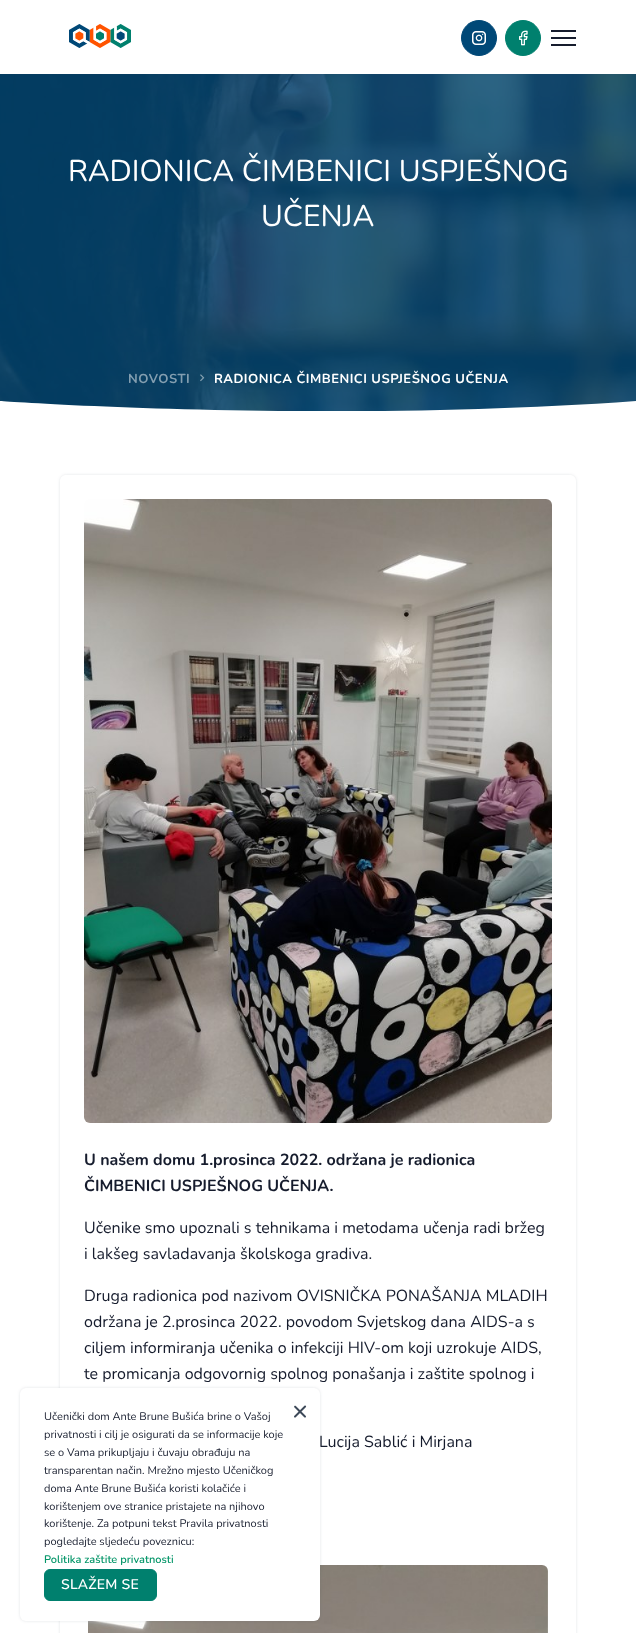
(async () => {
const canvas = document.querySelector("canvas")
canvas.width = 636
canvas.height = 1633
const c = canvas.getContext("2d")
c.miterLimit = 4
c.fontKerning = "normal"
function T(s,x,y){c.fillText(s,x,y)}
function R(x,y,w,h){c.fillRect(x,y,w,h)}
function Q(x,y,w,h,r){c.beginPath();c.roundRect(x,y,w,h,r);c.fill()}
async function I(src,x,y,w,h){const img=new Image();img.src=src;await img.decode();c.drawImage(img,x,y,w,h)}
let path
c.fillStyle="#fff"
R(0,0,636,1633)
await I("4.png",0,74,636,337)
c.fillStyle="#3c485826"
c.filter="blur(1.5px)"
c.beginPath()
c.rect(0,0,636,74)
c.fill()
c.filter="none"
c.fillStyle="#fff"
R(0,0,636,74)
await I("1.png",69,24,62,24)
c.fillStyle="#004877"
c.beginPath()
c.arc(479,38,17.5,0,7)
c.fill()
c.strokeStyle="#004877"
c.stroke()
await I("2.png",472,31,14,14)
c.fillStyle="#00806e"
c.beginPath()
c.arc(523,38,17.5,0,7)
c.fill()
c.strokeStyle="#00806e"
c.stroke()
await I("3.png",519,30,9,16)
c.fillStyle="#161c2d"
R(551,30,25,2)
R(551,37,25,2)
R(551,44,25,2)
c.font="30px Nunito"
c.fillStyle="#fff"
T("RADIONICA ČIMBENICI USPJEŠNOG",68,181)
T("UČENJA",261,226)
c.letterSpacing="0.5px"
c.font="bold 13px Nunito"
c.fillStyle="#839eb0"
T("NOVOSTI",128,383)
await I("5.png",200,374,5,8)
c.fillStyle="#fff"
T("RADIONICA ČIMBENICI USPJEŠNOG UČENJA",214,383)
c.save()
c.beginPath()
c.rect(0,401,636,11)
c.clip()
path = new Path2D("M-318 422h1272v-21h-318c-317 23-636 0-636 0h-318z")
c.fill(path)
c.restore()
c.save()
path = new Path2D("M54 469h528v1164h-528zm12 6h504c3.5 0 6 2.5 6 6v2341c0 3.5-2.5 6-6 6h-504c-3.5 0-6-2.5-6-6v-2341c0-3.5 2.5-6 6-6z")
c.clip(path,"evenodd")
c.fillStyle="#3c485826"
c.filter="blur(1.5px)"
c.beginPath()
c.roundRect(60,475,516,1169,6)
c.fill()
c.filter="none"
c.restore()
await I("6.png",84,499,468,624)
c.letterSpacing="0px"
c.font="bold 16px Nunito"
c.fillStyle="#161c2d"
T("U našem domu 1.prosinca 2022. održana je radionica",84,1165)
T("ČIMBENICI USPJEŠNOG UČENJA.",84,1191)
c.font="16px Nunito"
T("Učenike smo upoznali s tehnikama i metodama učenja radi bržeg",84,1233)
T("i lakšeg savladavanja školskoga gradiva.",84,1259)
T("Druga radionica pod nazivom OVISNIČKA PONAŠANJA MLADIH",84,1301)
T("održana je 2.prosinca 2022. povodom Svjetskog dana AIDS-a s",84,1327)
T("ciljem informiranja učenika o infekciji HIV-om koji uzrokuje AIDS,",84,1353)
T("te promicanja odgovornig spolnog ponašanja i zaštite spolnog i",84,1379)
T("Lucija Sablić i Mirjana",319,1447)
await I("7.png",88,1565,460,68)
c.fillStyle="#3c485826"
c.filter="blur(1.5px)"
c.beginPath()
c.roundRect(20,1388,300,233,6)
c.fill()
c.filter="none"
c.fillStyle="#fff"
Q(20,1388,300,233,6)
c.font="11px Nunito"
c.fillStyle="#161c2d"
T("Učenički dom Ante Brune Bušića brine o Vašoj",44,1420)
T("privatnosti i cilj je osigurati da se informacije koje",44,1438)
T("se o Vama prikupljaju i čuvaju obrađuju na",44,1456)
T("transparentan način. Mrežno mjesto Učeničkog",44,1474)
T("doma Ante Brune Bušića koristi kolačiće i",44,1492)
T("korištenjem ove stranice pristajete na njihovo",44,1510)
T("korištenje. Za potpuni tekst Pravila privatnosti",44,1527)
T("pogledajte sljedeću poveznicu:",44,1545)
c.font="600 11px Nunito"
c.fillStyle="#059669"
T("Politika zaštite privatnosti",44,1563)
c.fillStyle="#00806e"
c.beginPath()
c.roundRect(44.5,1569.5,112,31,5.5)
c.fill()
c.stroke()
c.letterSpacing="0.25px"
c.font="600 14px Nunito"
c.fillStyle="#fff"
T("SLAŽEM SE",61,1589)
await I("8.png",294,1405,13,13)
})()
